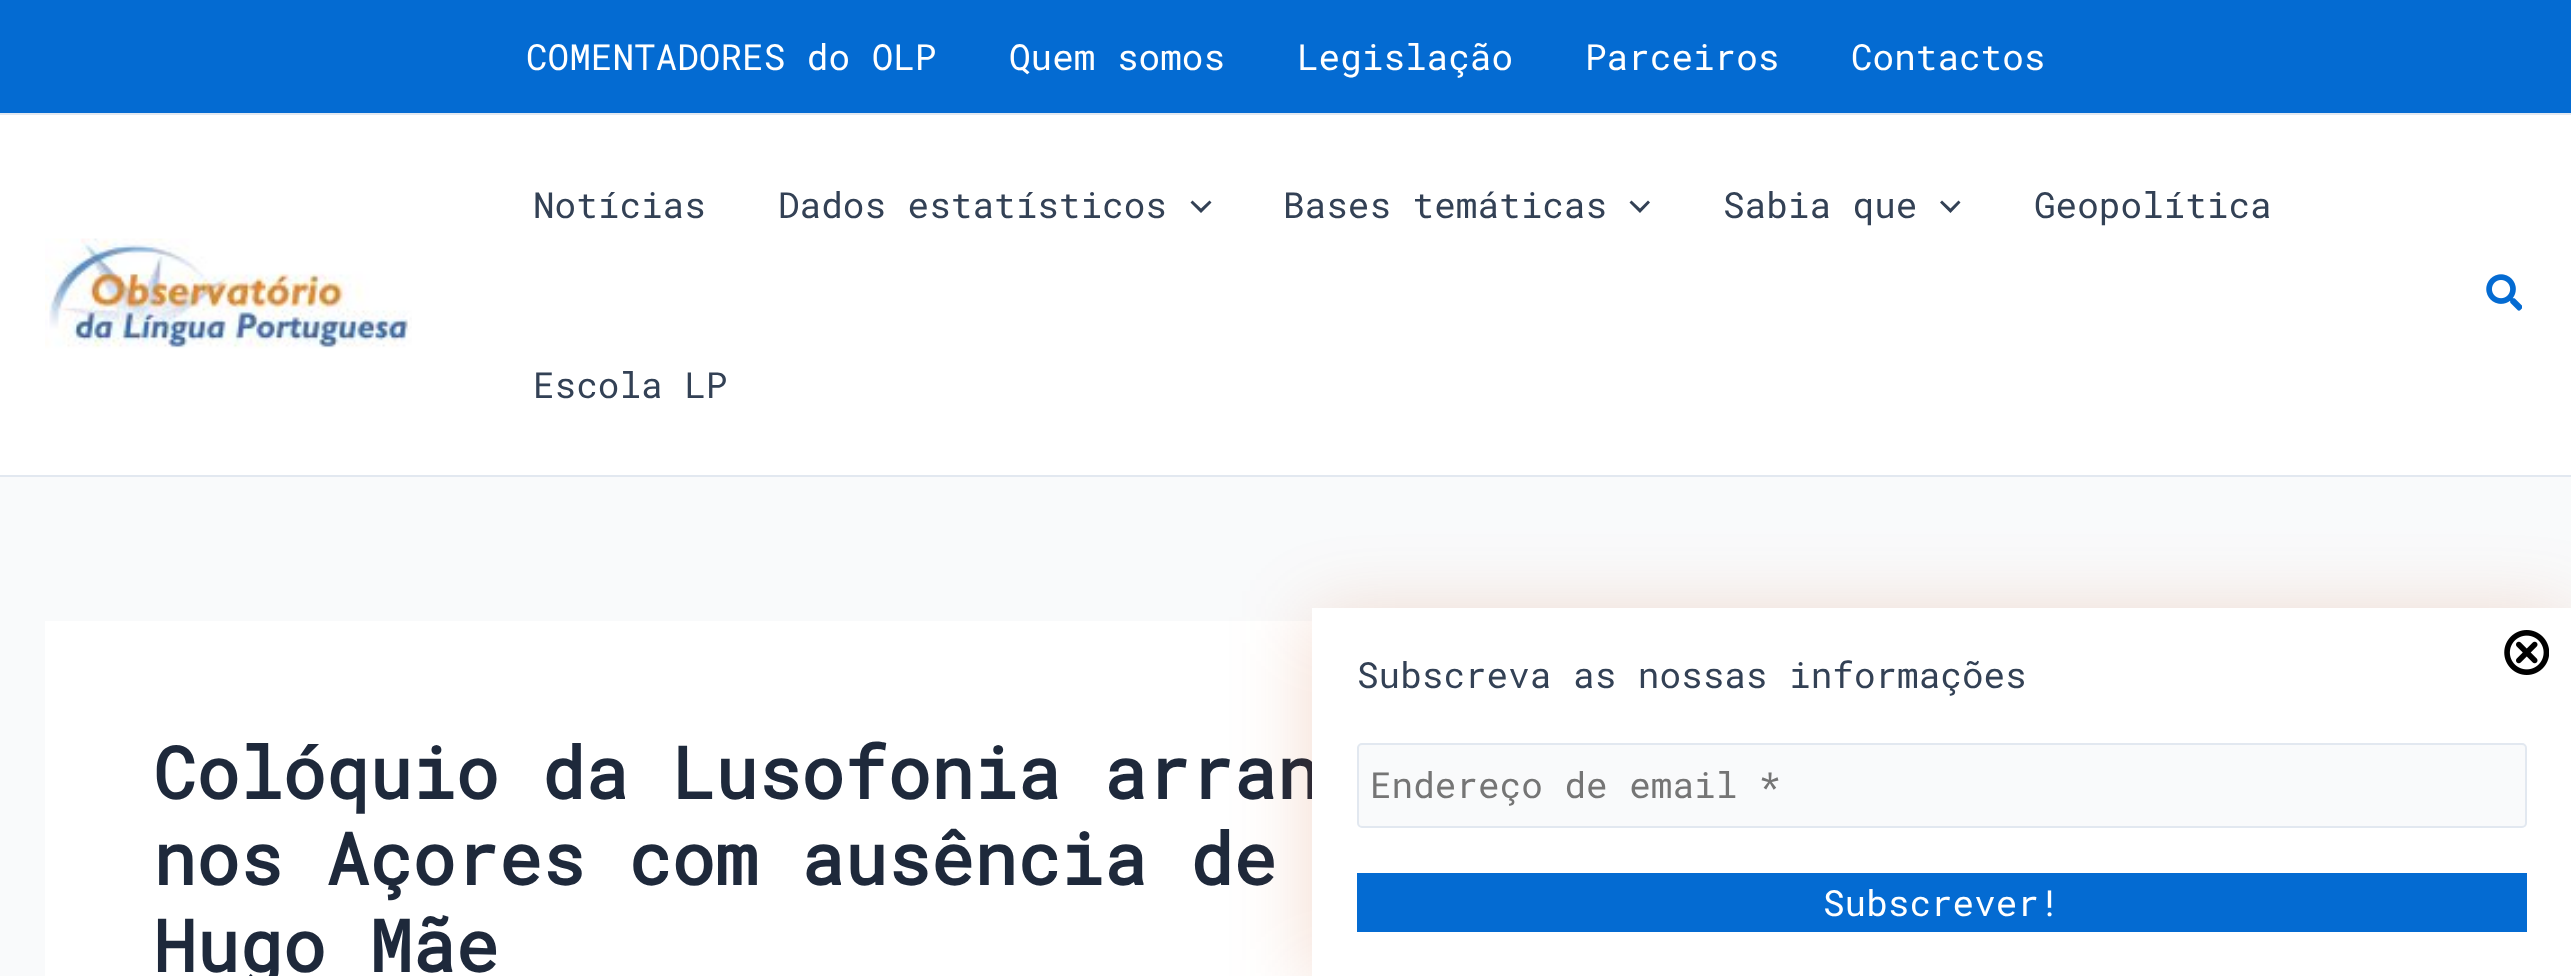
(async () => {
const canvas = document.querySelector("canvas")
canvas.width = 2571
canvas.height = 976
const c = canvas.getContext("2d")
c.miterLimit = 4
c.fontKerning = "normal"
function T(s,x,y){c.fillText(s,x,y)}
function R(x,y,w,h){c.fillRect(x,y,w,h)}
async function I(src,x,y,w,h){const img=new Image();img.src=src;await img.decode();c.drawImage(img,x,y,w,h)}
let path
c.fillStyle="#f9fafb"
R(0,0,2571,976)
c.fillStyle="#046bd2"
R(0,0,2571,113)
c.fillStyle="#e2e8f0"
R(0,113,2571,2)
c.font="36px Roboto Mono"
c.fillStyle="#fff"
T("COMENTADORES do OLP",526,70)
T("Quem somos",1009,70)
T("Legislação",1297,70)
T("Parceiros",1585,70)
T("Contactos",1851,70)
R(0,115,2571,360)
c.fillStyle="#e2e8f0"
R(0,475,2571,2)
await I("1.png",45,238,367,111)
c.fillStyle="#334155"
T("Notícias",533,218)
T("Dados estatísticos",778,218)
path = new Path2D("M1190.5 202.5l10.5 10.5l10.5-10.5l-2-2l-8.5 8l-8.5-8z")
c.fill(path)
T("Bases temáticas",1283,218)
path = new Path2D("M1629.5 202.5l10.5 10.5l10-10.5l-2-2l-8 8l-8.5-8z")
c.fill(path)
T("Sabia que",1723,218)
path = new Path2D("M1940 202.5l10.5 10.5l10-10.5l-2-2l-8 8l-8.5-8z")
c.fill(path)
T("Geopolítica",2034,218)
T("Escola LP",533,398)
await I("2.png",2486,274,36,37)
c.fillStyle="#fff"
R(45,621,1267,355)
c.font="bold 72px Roboto Mono"
c.fillStyle="#1e293b"
T("Colóquio da Lusofonia arran",153,799)
T("nos Açores com ausência de",153,885)
T("Hugo Mãe",153,972)
c.fillStyle="#c3410233"
c.filter="blur(39.5px)"
c.beginPath()
c.rect(1312,617,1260,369)
c.fill()
c.filter="none"
c.fillStyle="#fff"
R(1312,608,1259,368)
await I("3.png",2504,630,45,45)
c.font="36px Roboto Mono"
c.fillStyle="#334155"
T("Subscreva as nossas informações",1357,688)
c.fillStyle="#f9fafb"
c.beginPath()
c.roundRect(1358,744,1168,83,4)
c.fill()
c.strokeStyle="#e2e8f0"
c.lineWidth=2
c.stroke()
c.fillStyle="#757575"
T("Endereço de email *",1370,798)
c.fillStyle="#046bd2"
R(1357,873,1170,59)
c.fillStyle="#fff"
T("Subscrever!",1823,916)
})()
